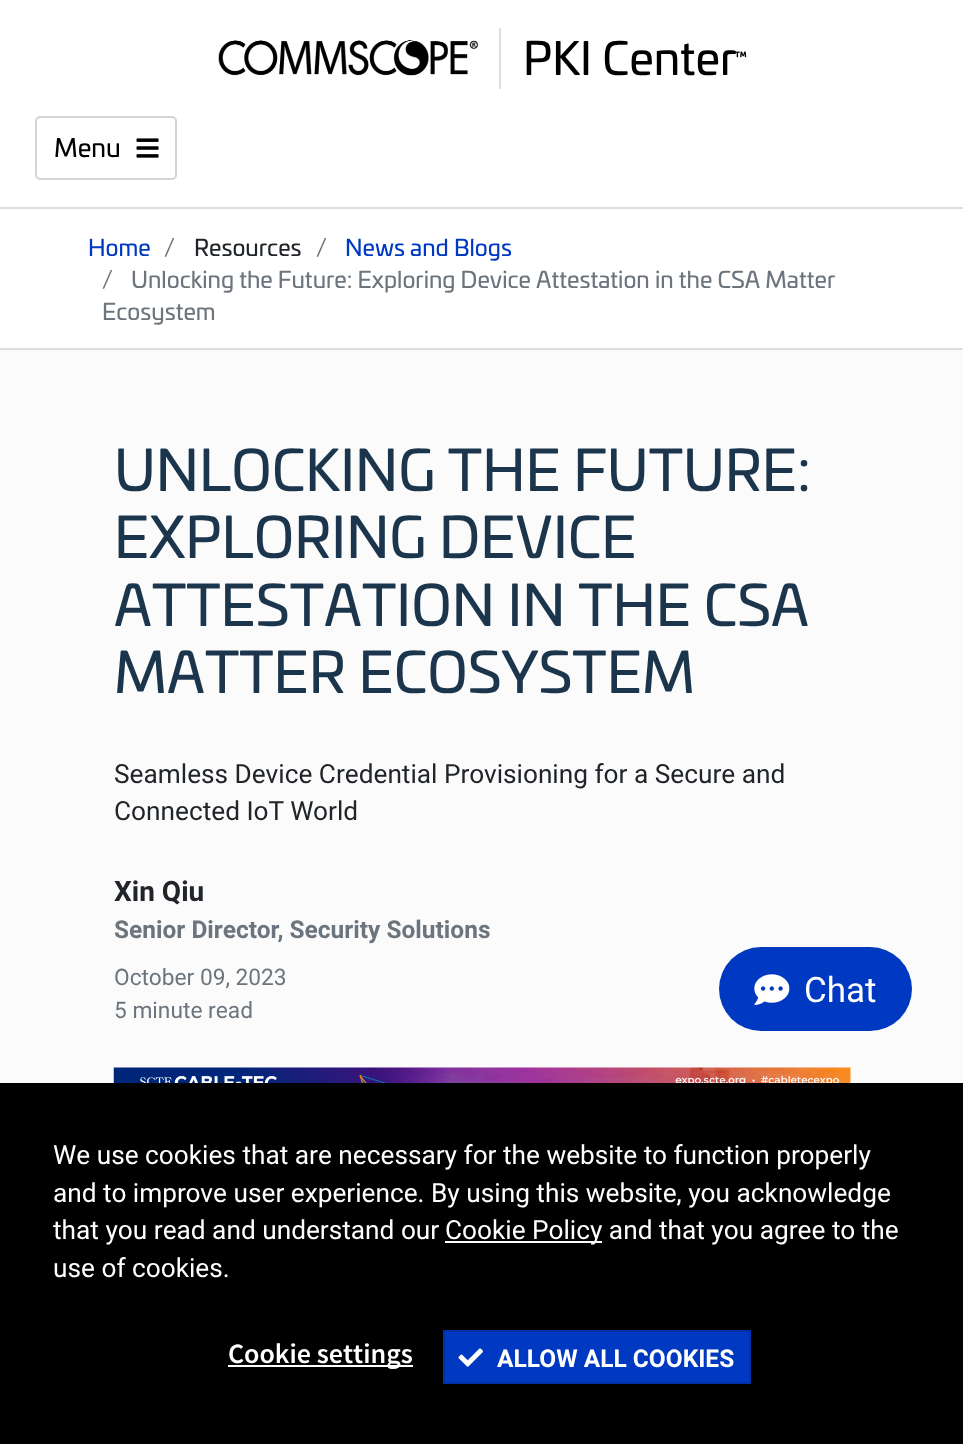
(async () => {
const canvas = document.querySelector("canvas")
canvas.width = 963
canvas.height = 1444
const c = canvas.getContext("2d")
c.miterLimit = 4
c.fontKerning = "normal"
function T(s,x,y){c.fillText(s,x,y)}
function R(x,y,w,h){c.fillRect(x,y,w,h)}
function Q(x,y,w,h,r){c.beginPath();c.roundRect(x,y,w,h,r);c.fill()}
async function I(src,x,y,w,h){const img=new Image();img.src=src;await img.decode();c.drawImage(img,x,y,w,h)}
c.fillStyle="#fbfbfb"
R(0,0,963,1444)
c.fillStyle="#fff"
R(0,0,963,207)
c.fillStyle="#dedede"
R(0,207,963,2)
await I("1.png",218,40,260,36)
R(499,28,2,61)
c.font="45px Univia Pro"
c.fillStyle="#000"
T("PKI Center",523,75)
await I("2.png",735,51,12,7)
c.beginPath()
c.roundRect(36,117,140,62,4)
c.strokeStyle="#d4d4d4"
c.lineWidth=2
c.stroke()
c.font="25px Univia Pro"
T("Menu",54,157)
await I("3.png",136,138,23,20)
c.fillStyle="#dedede"
R(0,348,963,2)
c.fillStyle="#fff"
R(0,209,963,139)
c.font="22.75px Univia Pro"
c.fillStyle="#0039c1"
T("Home",88,256)
c.fillStyle="#6c757d"
T("/",164,256)
c.fillStyle="#212529"
T("Resources",194,256)
c.fillStyle="#6c757d"
T("/",316,256)
c.fillStyle="#0039c1"
T("News and Blogs",345,256)
c.fillStyle="#6c757d"
T("/",102,288)
T("Unlocking the Future: Exploring Device Attestation in the CSA Matter",131,288)
T("Ecosystem",102,320)
c.font="56px Univia Pro"
c.fillStyle="#1b354c"
T("UNLOCKING THE FUTURE:",114,491)
T("EXPLORING DEVICE",114,558)
T("ATTESTATION IN THE CSA",114,626)
T("MATTER ECOSYSTEM",114,693)
c.font="26.25px Roboto"
c.fillStyle="#212529"
T("Seamless Device Credential Provisioning for a Secure and",114,783)
T("Connected IoT World",114,820)
c.font="bold 28px Roboto"
T("Xin Qiu",114,901)
c.font="bold 24.5px Roboto"
c.fillStyle="#6c757d"
T("Senior Director, Security Solutions",114,938)
c.font="22.75px Roboto"
T("October 09, 2023",114,985)
T("5 minute read",114,1018)
await I("4.png",113,1067,738,16)
c.fillStyle="#0039c1"
Q(719,947,193,84,42)
await I("5.png",754,974,36,31)
c.font="35px Roboto"
c.fillStyle="#fff"
T("Chat",804,1002)
c.fillStyle="#000"
R(0,1083,963,361)
c.font="26.25px Roboto"
c.fillStyle="#fff"
T("We use cookies that are necessary for the website to function properly",53,1164)
T("and to improve user experience. By using this website, you acknowledge",53,1202)
T("that you read and understand our",53,1239)
R(445,1241,157,2)
T("Cookie Policy and that you agree to the",445,1239)
T("use of cookies.",53,1277)
R(228,1365,185,2)
c.font="600 28px Source Sans Pro"
T("Cookie settings",228,1363)
c.fillStyle="#0039c1"
c.beginPath()
c.rect(444,1331,306,52)
c.fill()
c.strokeStyle="#0031a8"
c.stroke()
await I("6.png",458,1348,25,19)
c.font="bold 24.5px Roboto"
c.fillStyle="#fff"
T("ALLOW ALL COOKIES",497,1367)
})()
